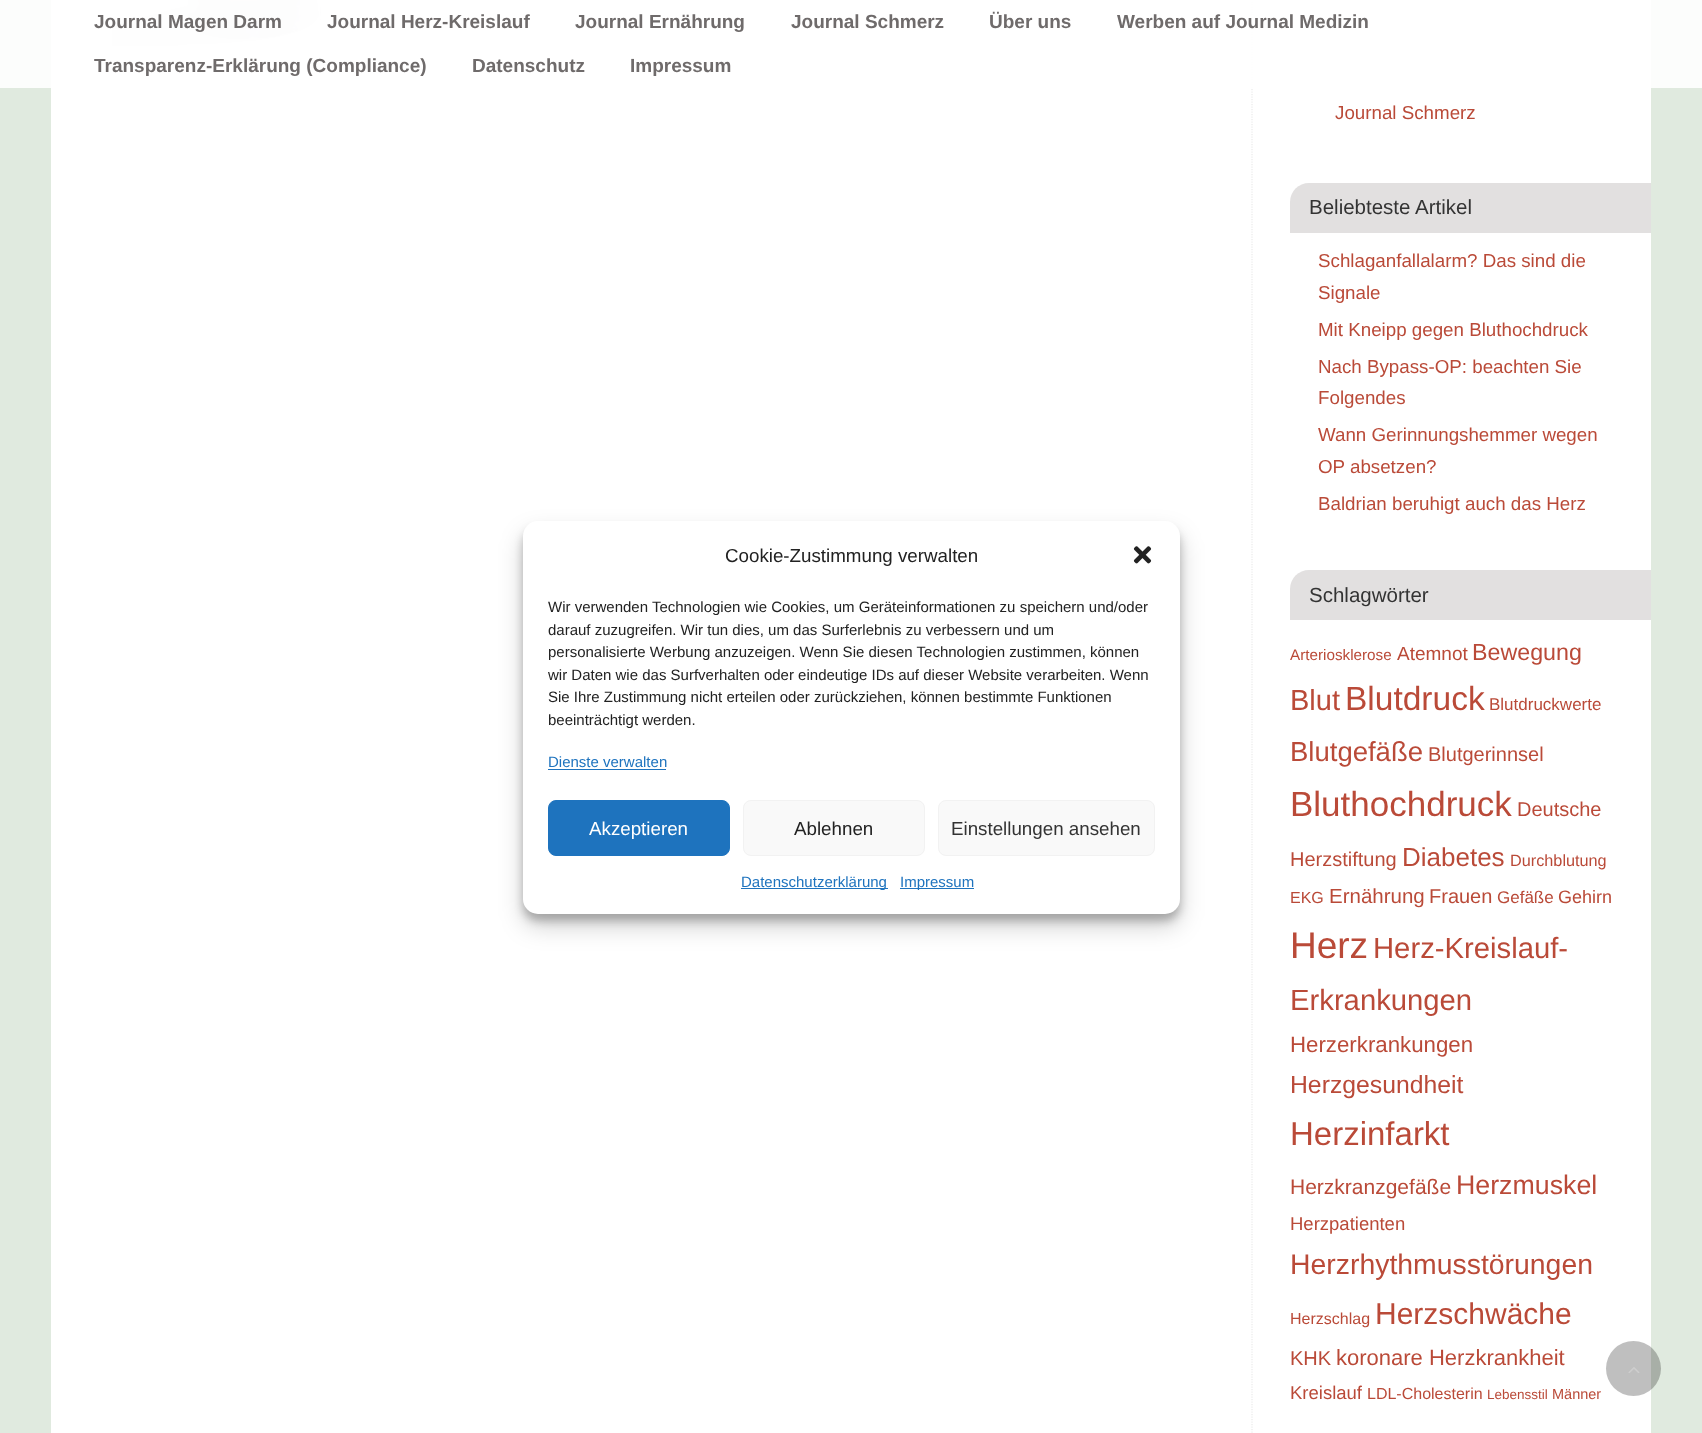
(async () => {
const canvas = document.querySelector("canvas")
canvas.width = 1702
canvas.height = 1433
const c = canvas.getContext("2d")
c.miterLimit = 4
c.fontKerning = "normal"
function T(s,x,y){c.fillText(s,x,y)}
function R(x,y,w,h){c.fillRect(x,y,w,h)}
function Q(x,y,w,h,r){c.beginPath();c.roundRect(x,y,w,h,r);c.fill()}
async function I(src,x,y,w,h){const img=new Image();img.src=src;await img.decode();c.drawImage(img,x,y,w,h)}
let path
c.fillStyle="#e0eadf"
R(0,0,1702,1433)
c.fillStyle="#fff"
R(51,0,1600,1433)
await I("1.png",111,0,312,46)
path = new Path2D("M1252-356v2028.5")
c.strokeStyle="#eaeaea"
c.lineWidth=1.2
c.setLineDash([1.25,1.25])
c.stroke(path)
c.fillStyle="#ffffffe6"
R(0,0,1702,88)
R(111,0,209,46)
c.font="bold 19px Liberation Sans"
c.fillStyle="#6f6b6b"
T("Journal Magen Darm",94,28)
T("Journal Herz-Kreislauf",327,28)
T("Journal Ernährung",575,28)
T("Journal Schmerz",791,28)
T("Über uns",989,28)
T("Werben auf Journal Medizin",1117,28)
T("Transparenz-Erklärung (Compliance)",94,72)
T("Datenschutz",472,72)
T("Impressum",630,72)
c.font="18.75px Liberation Sans"
c.fillStyle="#ba4a38"
T("Journal Schmerz",1335,119)
c.fillStyle="#e2e0e0"
c.beginPath()
c.roundRect(1290,183,361,50,[19,0,0,0])
c.fill()
c.font="20.5px Liberation Sans"
c.fillStyle="#333"
T("Beliebteste Artikel",1309,214)
c.font="18.75px Liberation Sans"
c.fillStyle="#ba4a38"
T("Schlaganfallalarm? Das sind die",1318,267)
T("Signale",1318,299)
T("Mit Kneipp gegen Bluthochdruck",1318,336)
T("Nach Bypass-OP: beachten Sie",1318,373)
T("Folgendes",1318,404)
T("Wann Gerinnungshemmer wegen",1318,441)
T("OP absetzen?",1318,473)
T("Baldrian beruhigt auch das Herz",1318,510)
c.fillStyle="#e2e0e0"
c.beginPath()
c.roundRect(1290,570,361,50,[19,0,0,0])
c.fill()
c.font="20.5px Liberation Sans"
c.fillStyle="#333"
T("Schlagwörter",1309,602)
c.font="15.25px Liberation Sans"
c.fillStyle="#ba4a38"
T("Arteriosklerose",1290,660)
c.font="19px Liberation Sans"
T("Atemnot",1397,660)
c.font="23.25px Liberation Sans"
T("Bewegung",1472,660)
c.font="29px Liberation Sans"
T("Blut",1290,710)
c.font="33.5px Liberation Sans"
T("Blutdruck",1345,710)
c.font="17px Liberation Sans"
T("Blutdruckwerte",1489,710)
c.font="27.5px Liberation Sans"
T("Blutgefäße",1290,761)
c.font="20px Liberation Sans"
T("Blutgerinnsel",1428,761)
c.font="35px Liberation Sans"
T("Bluthochdruck",1290,816)
c.font="20px Liberation Sans"
T("Deutsche",1517,816)
T("Herzstiftung",1290,866)
c.font="26px Liberation Sans"
T("Diabetes",1402,866)
c.font="16.25px Liberation Sans"
T("Durchblutung",1510,866)
c.font="16px Liberation Sans"
T("EKG",1290,903)
c.font="20.5px Liberation Sans"
T("Ernährung",1329,903)
c.font="20px Liberation Sans"
T("Frauen",1429,903)
c.font="17px Liberation Sans"
T("Gefäße",1497,903)
c.font="18px Liberation Sans"
T("Gehirn",1558,903)
c.font="37px Liberation Sans"
T("Herz",1290,958)
c.font="29.25px Liberation Sans"
T("Herz-Kreislauf-",1373,958)
T("Erkrankungen",1290,1010)
c.font="22.25px Liberation Sans"
T("Herzerkrankungen",1290,1052)
c.font="24.75px Liberation Sans"
T("Herzgesundheit",1290,1093)
c.font="33px Liberation Sans"
T("Herzinfarkt",1290,1145)
c.font="21px Liberation Sans"
T("Herzkranzgefäße",1290,1194)
c.font="26.75px Liberation Sans"
T("Herzmuskel",1456,1194)
c.font="18.5px Liberation Sans"
T("Herzpatienten",1290,1230)
c.font="28.4px Liberation Sans"
T("Herzrhythmusstörungen",1290,1274)
c.font="16px Liberation Sans"
T("Herzschlag",1290,1324)
c.font="30px Liberation Sans"
T("Herzschwäche",1375,1324)
c.font="20px Liberation Sans"
T("KHK",1290,1365)
c.font="22px Liberation Sans"
T("koronare Herzkrankheit",1336,1365)
c.font="18.5px Liberation Sans"
T("Kreislauf",1290,1399)
c.font="16px Liberation Sans"
T("LDL-Cholesterin",1367,1399)
c.font="13.5px Liberation Sans"
T("Lebensstil",1487,1399)
c.font="14.5px Liberation Sans"
T("Männer",1552,1399)
c.fillStyle="#0000003b"
c.filter="blur(4px)"
c.beginPath()
c.roundRect(523,529,657,392,15)
c.fill()
c.filter="none"
c.fillStyle="#00000030"
c.filter="blur(12.5px)"
c.beginPath()
c.roundRect(523,534,657,392,15)
c.fill()
c.filter="none"
c.fillStyle="#fff"
Q(523,521,657,393,15)
c.font="18.75px Liberation Sans"
c.fillStyle="#222"
T("Cookie-Zustimmung verwalten",725,562)
await I("2.png",1133,546,19,18)
c.font="15px Liberation Sans"
T("Wir verwenden Technologien wie Cookies, um Geräteinformationen zu speichern und/oder",548,612)
T("darauf zuzugreifen. Wir tun dies, um das Surferlebnis zu verbessern und um",548,635)
T("personalisierte Werbung anzuzeigen. Wenn Sie diesen Technologien zustimmen, können",548,657)
T("wir Daten wie das Surfverhalten oder eindeutige IDs auf dieser Website verarbeiten. Wenn",548,680)
T("Sie Ihre Zustimmung nicht erteilen oder zurückziehen, können bestimmte Funktionen",548,702)
T("beeinträchtigt werden.",548,725)
c.fillStyle="#1e73be"
T("Dienste verwalten",548,767)
R(548,769,118,1)
c.beginPath()
c.roundRect(548.5,800.5,181,55,7.5)
c.fill()
c.strokeStyle="#1e73be"
c.lineWidth=1
c.setLineDash([])
c.stroke()
c.font="18.75px Liberation Sans"
c.fillStyle="#fff"
T("Akzeptieren",589,835)
c.fillStyle="#f9f9f9"
c.beginPath()
c.roundRect(743.5,800.5,181,55,7.5)
c.fill()
c.strokeStyle="#f2f2f2"
c.stroke()
c.fillStyle="#222"
T("Ablehnen",794,835)
c.fillStyle="#f9f9f9"
c.beginPath()
c.roundRect(938.5,800.5,216,55,7.5)
c.fill()
c.stroke()
c.fillStyle="#333"
T("Einstellungen ansehen",951,835)
c.fillStyle="#1e73be"
R(741,888,147,1)
c.font="15px Liberation Sans"
T("Datenschutzerklärung",741,887)
R(900,888,74,1)
T("Impressum",900,887)
c.fillStyle="#00000040"
c.beginPath()
c.arc(1633.5,1368.5,27.5,0,7)
c.fill()
await I("3.png",1628,1367,12,6)
})()
